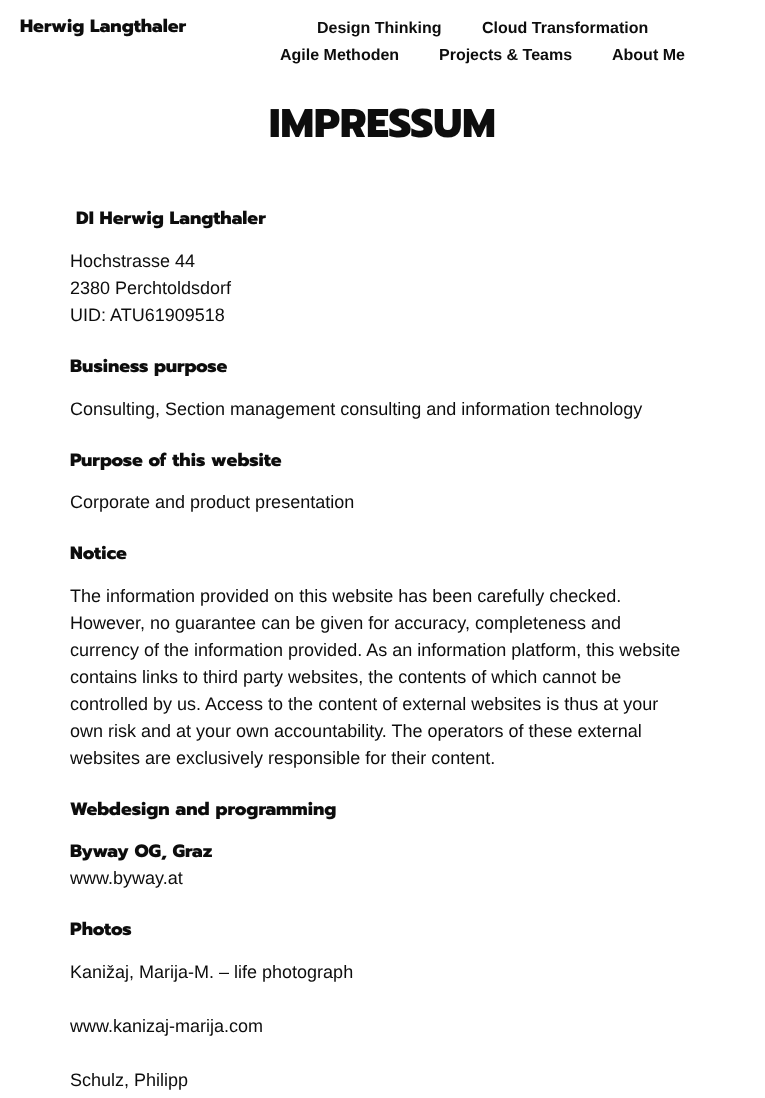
(async () => {
const canvas = document.querySelector("canvas")
canvas.width = 765
canvas.height = 1098
const c = canvas.getContext("2d")
c.miterLimit = 4
c.fontKerning = "normal"
function T(s,x,y){c.fillText(s,x,y)}
function R(x,y,w,h){c.fillRect(x,y,w,h)}
c.fillStyle="#fff"
R(0,0,765,1098)
c.font="800 18px Prompt"
c.fillStyle="#0d0d0d"
T("Herwig Langthaler",20,32)
c.font="bold 16px Liberation Sans"
T("Design Thinking",317,33)
T("Cloud Transformation",482,33)
T("Agile Methoden",280,60)
T("Projects & Teams",439,60)
T("About Me",612,60)
c.font="800 40px Prompt"
T("IMPRESSUM",269,137)
c.font="800 18px Prompt"
T("DI Herwig Langthaler",76,224)
c.font="18px Liberation Sans"
T("Hochstrasse 44",70,267)
T("2380 Perchtoldsdorf",70,294)
T("UID: ATU61909518",70,321)
c.font="800 18px Prompt"
T("Business purpose",70,372)
c.font="18px Liberation Sans"
T("Consulting, Section management consulting and information technology",70,415)
c.font="800 18px Prompt"
T("Purpose of this website",70,466)
c.font="18px Liberation Sans"
T("Corporate and product presentation",70,508)
c.font="800 18px Prompt"
T("Notice",70,559)
c.font="18px Liberation Sans"
T("The information provided on this website has been carefully checked.",70,602)
T("However, no guarantee can be given for accuracy, completeness and",70,629)
T("currency of the information provided. As an information platform, this website",70,656)
T("contains links to third party websites, the contents of which cannot be",70,683)
T("controlled by us. Access to the content of external websites is thus at your",70,710)
T("own risk and at your own accountability. The operators of these external",70,737)
T("websites are exclusively responsible for their content.",70,764)
c.font="800 18px Prompt"
T("Webdesign and programming",70,815)
T("Byway OG, Graz",70,857)
c.font="18px Liberation Sans"
T("www.byway.at",70,884)
c.font="800 18px Prompt"
T("Photos",70,935)
c.font="18px Liberation Sans"
T("Kanižaj, Marija-M. – life photograph",70,978)
T("www.kanizaj-marija.com",70,1032)
T("Schulz, Philipp",70,1086)
})()
